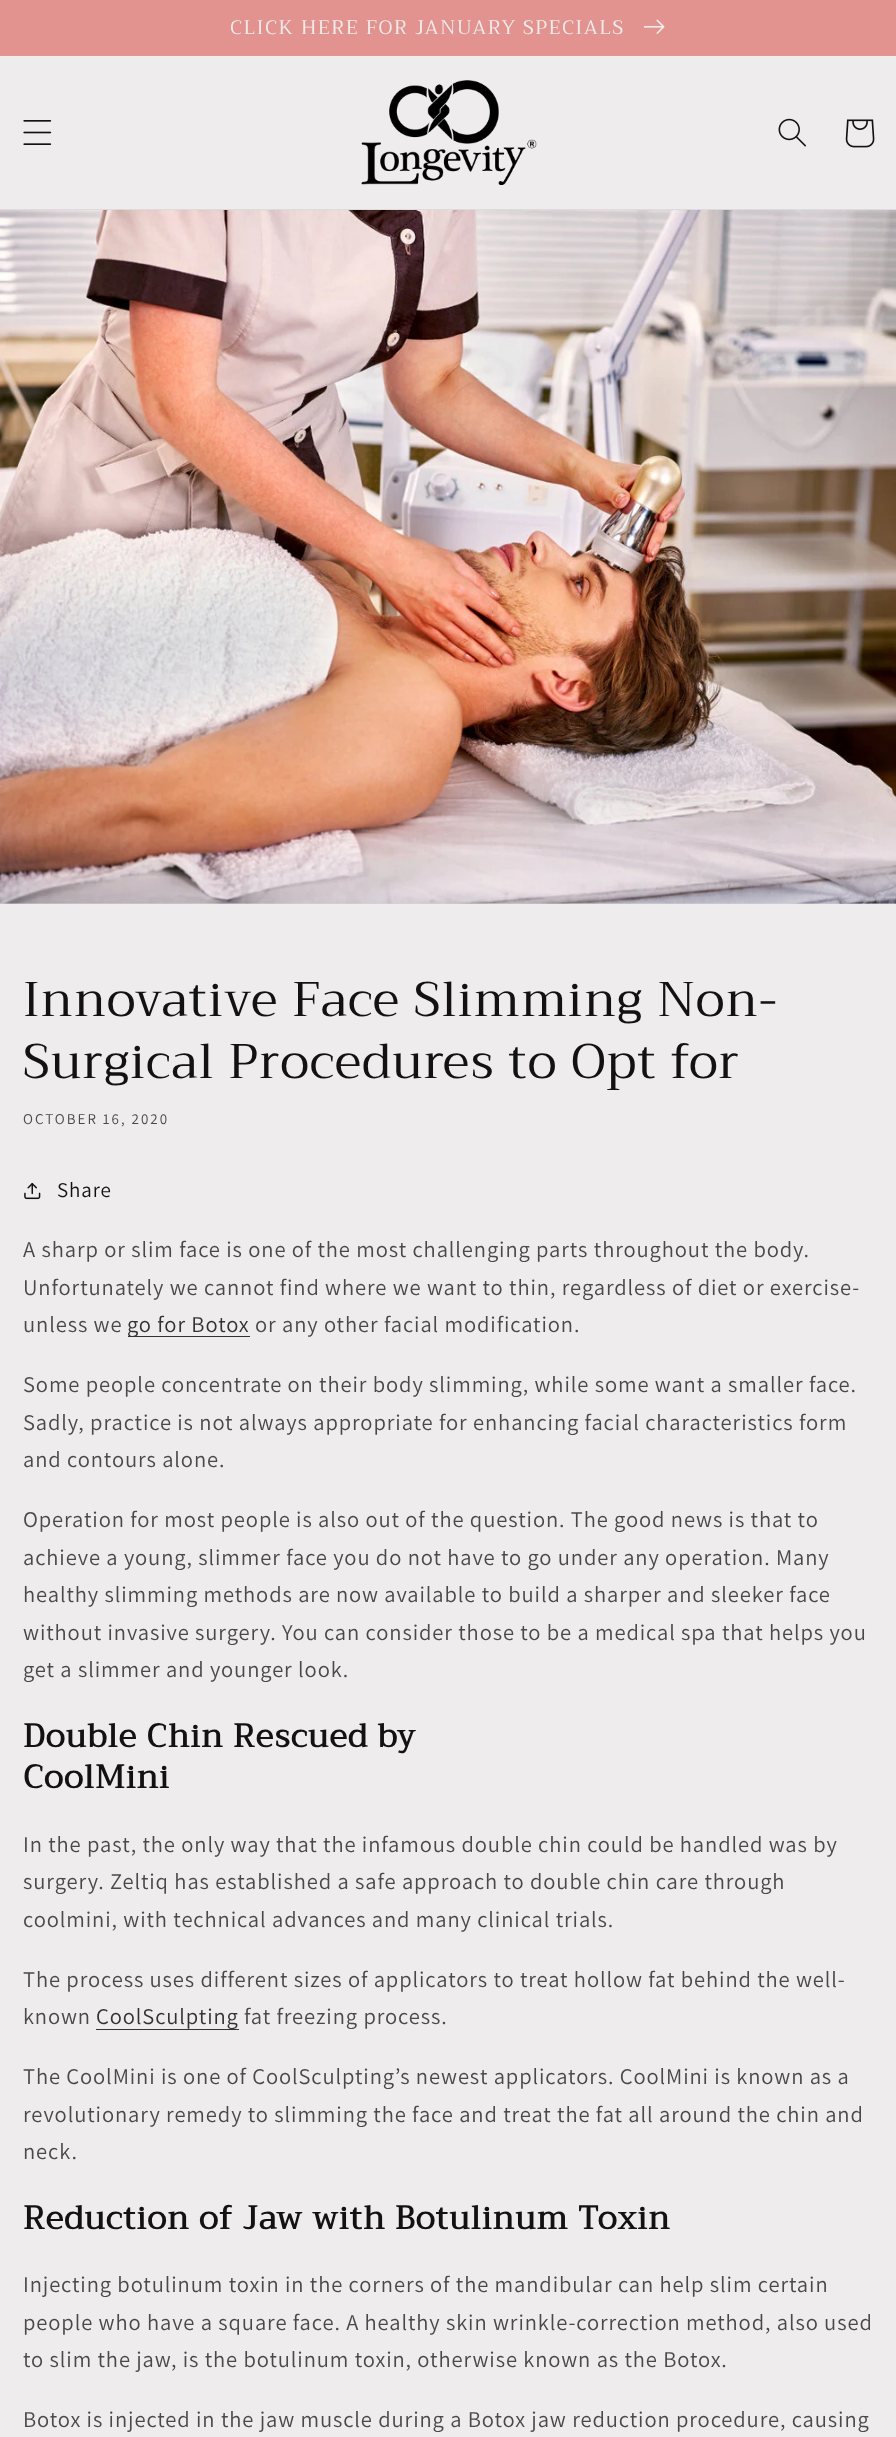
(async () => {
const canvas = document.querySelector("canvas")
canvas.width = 896
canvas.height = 2437
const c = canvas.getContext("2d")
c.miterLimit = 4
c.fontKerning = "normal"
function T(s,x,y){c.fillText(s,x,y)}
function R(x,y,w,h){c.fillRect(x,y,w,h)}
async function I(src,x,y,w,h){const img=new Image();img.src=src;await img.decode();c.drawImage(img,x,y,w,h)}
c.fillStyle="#eeecec"
R(0,0,896,2437)
c.fillStyle="#e39591"
R(0,55,896,1)
c.fillStyle="#e3938f"
R(0,0,896,55)
c.letterSpacing="1.5px"
c.font="19.5px Trirong"
c.fillStyle="#eeecec"
T("CLICK HERE FOR JANUARY SPECIALS",230,34)
await I("1.png",644,19,21,15)
c.fillStyle="#dcdbdb"
R(0,209,896,1)
await I("2.png",23,120,29,25)
await I("3.png",361,80,176,105)
await I("4.png",778,118,28,29)
await I("5.png",845,119,30,29)
c.fillStyle="#d9d8d8"
R(0,903,896,1)
await I("6.png",0,210,896,694)
c.letterSpacing="1px"
c.font="48.75px Trirong"
c.fillStyle="#121212"
T("Innovative Face Slimming Non-",23,1016)
T("Surgical Procedures to Opt for",23,1078)
c.letterSpacing="2px"
c.font="15px Assistant"
c.fillStyle="#494949"
T("OCTOBER 16, 2020",23,1124)
await I("7.png",24,1183,17,17)
c.letterSpacing="0.9px"
c.font="21px Assistant"
c.fillStyle="#121212"
T("Share",57,1197)
c.font="22.5px Assistant"
c.fillStyle="#494949"
T("A sharp or slim face is one of the most challenging parts throughout the body.",23,1257)
T("Unfortunately we cannot find where we want to thin, regardless of diet or exercise-",23,1295)
T("unless we",23,1332)
c.fillStyle="#333"
R(128,1336,122,1)
c.fillStyle="#333232"
T("go for Botox",127,1332)
c.fillStyle="#494949"
T("or any other facial modification.",255,1332)
T("Some people concentrate on their body slimming, while some want a smaller face.",23,1392)
T("Sadly, practice is not always appropriate for enhancing facial characteristics form",23,1430)
T("and contours alone.",23,1467)
T("Operation for most people is also out of the question. The good news is that to",23,1527)
T("achieve a young, slimmer face you do not have to go under any operation. Many",23,1565)
T("healthy slimming methods are now available to build a sharper and sleeker face",23,1602)
T("without invasive surgery. You can consider those to be a medical spa that helps you",23,1640)
T("get a slimmer and younger look.",23,1677)
c.letterSpacing="1px"
c.font="bold 32.5px Trirong"
c.fillStyle="#121212"
T("Double Chin Rescued by",23,1747)
T("CoolMini",23,1788)
c.letterSpacing="0.9px"
c.font="22.5px Assistant"
c.fillStyle="#494949"
T("In the past, the only way that the infamous double chin could be handled was by",23,1852)
T("surgery. Zeltiq has established a safe approach to double chin care through",23,1889)
T("coolmini, with technical advances and many clinical trials.",23,1927)
T("The process uses different sizes of applicators to treat hollow fat behind the well-",23,1987)
T("known",23,2024)
c.fillStyle="#333"
R(96,2029,143,1)
c.fillStyle="#333232"
T("CoolSculpting",96,2024)
c.fillStyle="#494949"
T("fat freezing process.",244,2024)
T("The CoolMini is one of CoolSculpting’s newest applicators. CoolMini is known as a",23,2084)
T("revolutionary remedy to slimming the face and treat the fat all around the chin and",23,2122)
T("neck.",23,2159)
c.letterSpacing="1px"
c.font="bold 32.5px Trirong"
c.fillStyle="#121212"
T("Reduction of Jaw with Botulinum Toxin",23,2229)
c.letterSpacing="0.9px"
c.font="22.5px Assistant"
c.fillStyle="#494949"
T("Injecting botulinum toxin in the corners of the mandibular can help slim certain",23,2292)
T("people who have a square face. A healthy skin wrinkle-correction method, also used",23,2330)
T("to slim the jaw, is the botulinum toxin, otherwise known as the Botox.",23,2367)
T("Botox is injected in the jaw muscle during a Botox jaw reduction procedure, causing",23,2427)
})()
